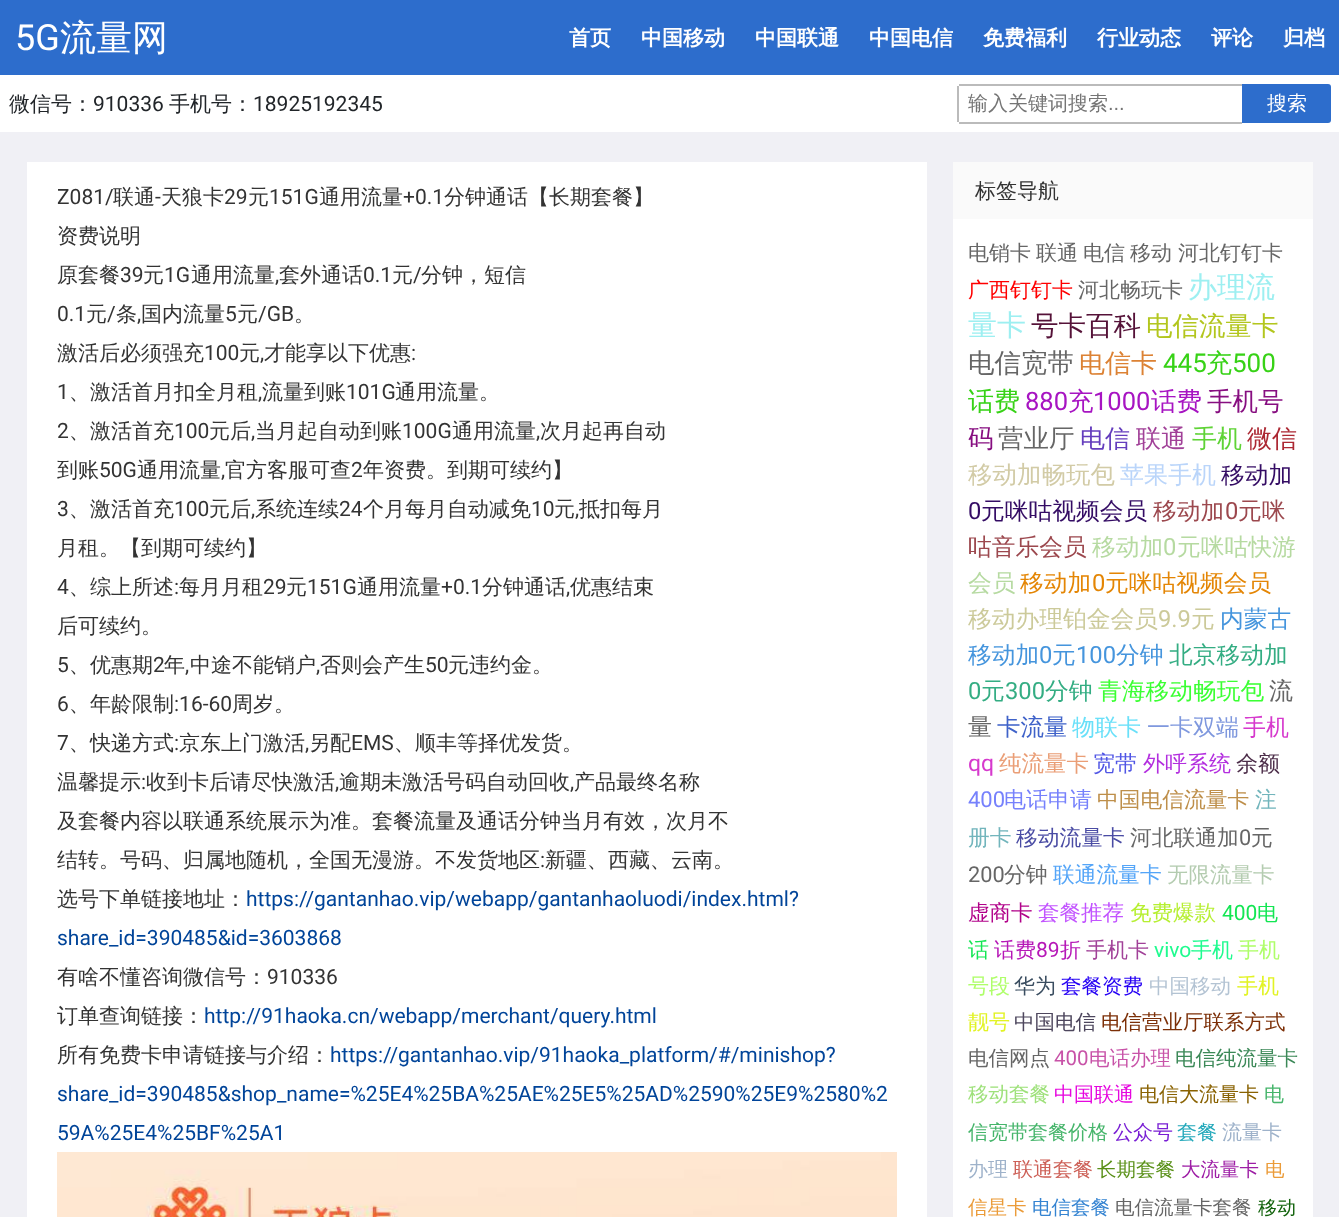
(async () => {
const canvas = document.querySelector("canvas")
canvas.width = 1339
canvas.height = 1217
const c = canvas.getContext("2d")
c.miterLimit = 4
c.fontKerning = "normal"
function T(s,x,y){c.fillText(s,x,y)}
function R(x,y,w,h){c.fillRect(x,y,w,h)}
async function I(src,x,y,w,h){const img=new Image();img.src=src;await img.decode();c.drawImage(img,x,y,w,h)}
c.fillStyle="#f0f0f5"
R(0,0,1339,1217)
c.fillStyle="#2d6dcc"
R(0,0,1339,75)
c.font="36px Roboto"
c.fillStyle="#fff"
T("5G",15,50)
c.font="500 36px WenQuanYi Zen Hei"
T("流量网",60,50)
c.font="bold 21px WenQuanYi Zen Hei"
T("首页",569,45)
T("中国移动",641,45)
T("中国联通",755,45)
T("中国电信",869,45)
T("免费福利",983,45)
T("行业动态",1097,45)
T("评论",1211,45)
T("归档",1283,45)
R(0,75,1339,57)
c.font="500 21px WenQuanYi Zen Hei"
c.fillStyle="#212529"
T("微信号：",9,111)
c.font="21px Roboto"
T("910336",93,111)
c.font="500 21px WenQuanYi Zen Hei"
T("手机号：",169,111)
c.font="21px Roboto"
T("18925192345",253,111)
c.fillStyle="#bbb"
R(959,84,283,2)
R(959,122,283,2)
R(957,86,2,36)
c.font="500 20px WenQuanYi Zen Hei"
c.fillStyle="#757575"
T("输入关键词搜索",968,110)
c.font="20px Liberation Sans"
T("...",1108,110)
c.fillStyle="#2d6dcc"
c.beginPath()
c.roundRect(1242,84,89,39,[0,3,3,0])
c.fill()
c.font="500 20px WenQuanYi Zen Hei"
c.fillStyle="#fff"
T("搜索",1267,110)
R(27,162,900,1055)
c.font="21px Roboto"
c.fillStyle="#333"
T("Z081/",57,204)
c.font="500 21px WenQuanYi Zen Hei"
T("联通",113,204)
c.font="21px Roboto"
T("-",155,204)
c.font="500 21px WenQuanYi Zen Hei"
T("天狼卡",161,204)
c.font="21px Roboto"
T("29",224,204)
c.font="500 21px WenQuanYi Zen Hei"
T("元",248,204)
c.font="21px Roboto"
T("151G",269,204)
c.font="500 21px WenQuanYi Zen Hei"
T("通用流量",319,204)
c.font="21px Roboto"
T("+0.1",403,204)
c.font="500 21px WenQuanYi Zen Hei"
T("分钟通话【长期套餐】",444,204)
T("资费说明",57,243)
T("原套餐",57,282)
c.font="21px Roboto"
T("39",120,282)
c.font="500 21px WenQuanYi Zen Hei"
T("元",143,282)
c.font="21px Roboto"
T("1G",164,282)
c.font="500 21px WenQuanYi Zen Hei"
T("通用流量",191,282)
c.font="21px Roboto"
T(",",275,282)
c.font="500 21px WenQuanYi Zen Hei"
T("套外通话",279,282)
c.font="21px Roboto"
T("0.1",363,282)
c.font="500 21px WenQuanYi Zen Hei"
T("元",392,282)
c.font="21px Roboto"
T("/",413,282)
c.font="500 21px WenQuanYi Zen Hei"
T("分钟，短信",421,282)
c.font="21px Roboto"
T("0.1",57,321)
c.font="500 21px WenQuanYi Zen Hei"
T("元",86,321)
c.font="21px Roboto"
T("/",107,321)
c.font="500 21px WenQuanYi Zen Hei"
T("条",116,321)
c.font="21px Roboto"
T(",",137,321)
c.font="500 21px WenQuanYi Zen Hei"
T("国内流量",141,321)
c.font="21px Roboto"
T("5",225,321)
c.font="500 21px WenQuanYi Zen Hei"
T("元",237,321)
c.font="21px Roboto"
T("/GB",258,321)
c.font="500 21px WenQuanYi Zen Hei"
T("。",294,321)
T("激活后必须强充",57,360)
c.font="21px Roboto"
T("100",204,360)
c.font="500 21px WenQuanYi Zen Hei"
T("元",239,360)
c.font="21px Roboto"
T(",",260,360)
c.font="500 21px WenQuanYi Zen Hei"
T("才能享以下优惠",264,360)
c.font="21px Roboto"
T(":",411,360)
T("1",57,399)
c.font="500 21px WenQuanYi Zen Hei"
T("、激活首月扣全月租",69,399)
c.font="21px Roboto"
T(",",258,399)
c.font="500 21px WenQuanYi Zen Hei"
T("流量到账",262,399)
c.font="21px Roboto"
T("101G",346,399)
c.font="500 21px WenQuanYi Zen Hei"
T("通用流量。",395,399)
c.font="21px Roboto"
T("2",57,438)
c.font="500 21px WenQuanYi Zen Hei"
T("、激活首充",69,438)
c.font="21px Roboto"
T("100",174,438)
c.font="500 21px WenQuanYi Zen Hei"
T("元后",209,438)
c.font="21px Roboto"
T(",",251,438)
c.font="500 21px WenQuanYi Zen Hei"
T("当月起自动到账",255,438)
c.font="21px Roboto"
T("100G",402,438)
c.font="500 21px WenQuanYi Zen Hei"
T("通用流量",452,438)
c.font="21px Roboto"
T(",",536,438)
c.font="500 21px WenQuanYi Zen Hei"
T("次月起再自动",540,438)
T("到账",57,477)
c.font="21px Roboto"
T("50G",99,477)
c.font="500 21px WenQuanYi Zen Hei"
T("通用流量",137,477)
c.font="21px Roboto"
T(",",221,477)
c.font="500 21px WenQuanYi Zen Hei"
T("官方客服可查",225,477)
c.font="21px Roboto"
T("2",351,477)
c.font="500 21px WenQuanYi Zen Hei"
T("年资费。到期可续约】",363,477)
c.font="21px Roboto"
T("3",57,516)
c.font="500 21px WenQuanYi Zen Hei"
T("、激活首充",69,516)
c.font="21px Roboto"
T("100",174,516)
c.font="500 21px WenQuanYi Zen Hei"
T("元后",209,516)
c.font="21px Roboto"
T(",",251,516)
c.font="500 21px WenQuanYi Zen Hei"
T("系统连续",255,516)
c.font="21px Roboto"
T("24",339,516)
c.font="500 21px WenQuanYi Zen Hei"
T("个月每月自动减免",363,516)
c.font="21px Roboto"
T("10",531,516)
c.font="500 21px WenQuanYi Zen Hei"
T("元",554,516)
c.font="21px Roboto"
T(",",575,516)
c.font="500 21px WenQuanYi Zen Hei"
T("抵扣每月",579,516)
T("月租。【到期可续约】",57,555)
c.font="21px Roboto"
T("4",57,594)
c.font="500 21px WenQuanYi Zen Hei"
T("、综上所述",69,594)
c.font="21px Roboto"
T(":",174,594)
c.font="500 21px WenQuanYi Zen Hei"
T("每月月租",179,594)
c.font="21px Roboto"
T("29",263,594)
c.font="500 21px WenQuanYi Zen Hei"
T("元",286,594)
c.font="21px Roboto"
T("151G",307,594)
c.font="500 21px WenQuanYi Zen Hei"
T("通用流量",357,594)
c.font="21px Roboto"
T("+0.1",441,594)
c.font="500 21px WenQuanYi Zen Hei"
T("分钟通话",482,594)
c.font="21px Roboto"
T(",",566,594)
c.font="500 21px WenQuanYi Zen Hei"
T("优惠结束",570,594)
T("后可续约。",57,633)
c.font="21px Roboto"
T("5",57,672)
c.font="500 21px WenQuanYi Zen Hei"
T("、优惠期",69,672)
c.font="21px Roboto"
T("2",153,672)
c.font="500 21px WenQuanYi Zen Hei"
T("年",164,672)
c.font="21px Roboto"
T(",",185,672)
c.font="500 21px WenQuanYi Zen Hei"
T("中途不能销户",190,672)
c.font="21px Roboto"
T(",",316,672)
c.font="500 21px WenQuanYi Zen Hei"
T("否则会产生",320,672)
c.font="21px Roboto"
T("50",425,672)
c.font="500 21px WenQuanYi Zen Hei"
T("元违约金。",448,672)
c.font="21px Roboto"
T("6",57,711)
c.font="500 21px WenQuanYi Zen Hei"
T("、年龄限制",69,711)
c.font="21px Roboto"
T(":16-60",174,711)
c.font="500 21px WenQuanYi Zen Hei"
T("周岁。",232,711)
c.font="21px Roboto"
T("7",57,750)
c.font="500 21px WenQuanYi Zen Hei"
T("、快递方式",69,750)
c.font="21px Roboto"
T(":",174,750)
c.font="500 21px WenQuanYi Zen Hei"
T("京东上门激活",179,750)
c.font="21px Roboto"
T(",",305,750)
c.font="500 21px WenQuanYi Zen Hei"
T("另配",309,750)
c.font="21px Roboto"
T("EMS",351,750)
c.font="500 21px WenQuanYi Zen Hei"
T("、顺丰等择优发货。",394,750)
T("温馨提示",57,789)
c.font="21px Roboto"
T(":",141,789)
c.font="500 21px WenQuanYi Zen Hei"
T("收到卡后请尽快激活",146,789)
c.font="21px Roboto"
T(",",335,789)
c.font="500 21px WenQuanYi Zen Hei"
T("逾期未激活号码自动回收",339,789)
c.font="21px Roboto"
T(",",570,789)
c.font="500 21px WenQuanYi Zen Hei"
T("产品最终名称",574,789)
T("及套餐内容以联通系统展示为准。套餐流量及通话分钟当月有效，次月不",57,828)
T("结转。号码、归属地随机，全国无漫游。不发货地区",57,867)
c.font="21px Roboto"
T(":",540,867)
c.font="500 21px WenQuanYi Zen Hei"
T("新疆、西藏、云南。",545,867)
T("选号下单链接地址：",57,906)
c.font="21px Roboto"
c.fillStyle="#049"
T("https://gantanhao.vip/webapp/gantanhaoluodi/index.html?",246,906)
T("share_id=390485&id=3603868",57,945)
c.font="500 21px WenQuanYi Zen Hei"
c.fillStyle="#333"
T("有啥不懂咨询微信号：",57,984)
c.font="21px Roboto"
T("910336",267,984)
c.font="500 21px WenQuanYi Zen Hei"
T("订单查询链接：",57,1023)
c.font="21px Roboto"
c.fillStyle="#049"
T("http://91haoka.cn/webapp/merchant/query.html",204,1023)
c.font="500 21px WenQuanYi Zen Hei"
c.fillStyle="#333"
T("所有免费卡申请链接与介绍：",57,1062)
c.font="21px Roboto"
c.fillStyle="#049"
T("https://gantanhao.vip/91haoka_platform/#/minishop?",330,1062)
T("share_id=390485&shop_name=%25E4%25BA%25AE%25E5%25AD%2590%25E9%2580%2",57,1101)
T("59A%25E4%25BF%25A1",57,1140)
await I("1.png",57,1152,840,65)
c.fillStyle="#fff"
R(953,219,360,998)
c.fillStyle="#fafafa"
R(953,162,360,57)
c.font="500 21px WenQuanYi Zen Hei"
c.fillStyle="#333"
T("标签导航",975,198)
c.fillStyle="#666"
T("电销卡",968,260)
T("联通",1036,260)
T("电信",1083,260)
T("移动",1130,260)
T("河北钉钉卡",1178,260)
c.fillStyle="#f00"
T("广西钉钉卡",968,297)
c.fillStyle="#666"
T("河北畅玩卡",1078,297)
c.font="500 29px WenQuanYi Zen Hei"
c.fillStyle="#9deff1"
T("办理流",1188,297)
T("量卡",968,335)
c.font="500 27.5px WenQuanYi Zen Hei"
c.fillStyle="#551238"
T("号卡百科",1031,335)
c.font="500 26.5px WenQuanYi Zen Hei"
c.fillStyle="#b3c61e"
T("电信流量卡",1146,335)
c.fillStyle="#666"
T("电信宽带",968,372)
c.font="500 26px WenQuanYi Zen Hei"
c.fillStyle="#dc8234"
T("电信卡",1079,372)
c.font="26px Roboto"
c.fillStyle="#37d216"
T("445",1163,372)
c.font="500 26px WenQuanYi Zen Hei"
T("充",1206,372)
c.font="26px Roboto"
T("500",1232,372)
c.font="500 26px WenQuanYi Zen Hei"
T("话费",968,410)
c.font="25.5px Roboto"
c.fillStyle="#a714c2"
T("880",1025,410)
c.font="500 25.5px WenQuanYi Zen Hei"
T("充",1068,410)
c.font="25.5px Roboto"
T("1000",1093,410)
c.font="500 25.5px WenQuanYi Zen Hei"
T("话费",1151,410)
c.fillStyle="#870e80"
T("手机号",1207,410)
T("码",968,447)
c.fillStyle="#666"
T("营业厅",998,447)
c.font="500 25px WenQuanYi Zen Hei"
c.fillStyle="#643dbd"
T("电信",1080,447)
c.fillStyle="#a14198"
T("联通",1136,447)
c.fillStyle="#5fd336"
T("手机",1192,447)
c.fillStyle="#ac2833"
T("微信",1247,447)
c.font="500 24.5px WenQuanYi Zen Hei"
c.fillStyle="#d2cba6"
T("移动加畅玩包",968,483)
c.font="500 24px WenQuanYi Zen Hei"
c.fillStyle="#bad5fa"
T("苹果手机",1120,483)
c.font="500 23.75px WenQuanYi Zen Hei"
c.fillStyle="#340c64"
T("移动加",1221,483)
c.font="23.75px Roboto"
T("0",968,519)
c.font="500 23.75px WenQuanYi Zen Hei"
T("元咪咕视频会员",981,519)
c.fillStyle="#9c484e"
T("移动加",1153,519)
c.font="23.75px Roboto"
T("0",1225,519)
c.font="500 23.75px WenQuanYi Zen Hei"
T("元咪",1238,519)
T("咕音乐会员",968,555)
c.fillStyle="#b6daa1"
T("移动加",1092,555)
c.font="23.75px Roboto"
T("0",1163,555)
c.font="500 23.75px WenQuanYi Zen Hei"
T("元咪咕快游",1177,555)
T("会员",968,591)
c.fillStyle="#e48605"
T("移动加",1020,591)
c.font="23.75px Roboto"
T("0",1092,591)
c.font="500 23.75px WenQuanYi Zen Hei"
T("元咪咕视频会员",1105,591)
c.fillStyle="#ccca9a"
T("移动办理铂金会员",968,627)
c.font="23.75px Roboto"
T("9.9",1158,627)
c.font="500 23.75px WenQuanYi Zen Hei"
T("元",1191,627)
c.fillStyle="#4595dd"
T("内蒙古",1220,627)
T("移动加",968,663)
c.font="23.75px Roboto"
T("0",1039,663)
c.font="500 23.75px WenQuanYi Zen Hei"
T("元",1052,663)
c.font="23.75px Roboto"
T("100",1076,663)
c.font="500 23.75px WenQuanYi Zen Hei"
T("分钟",1116,663)
c.fillStyle="#34ad83"
T("北京移动加",1169,663)
c.font="23.75px Roboto"
T("0",968,699)
c.font="500 23.75px WenQuanYi Zen Hei"
T("元",981,699)
c.font="23.75px Roboto"
T("300",1005,699)
c.font="500 23.75px WenQuanYi Zen Hei"
T("分钟",1045,699)
c.fillStyle="#3cff34"
T("青海移动畅玩包",1098,699)
c.font="500 24px WenQuanYi Zen Hei"
c.fillStyle="#666"
T("流",1269,699)
T("量",968,735)
c.font="500 23.5px WenQuanYi Zen Hei"
c.fillStyle="#3f62c9"
T("卡流量",997,735)
c.font="500 23px WenQuanYi Zen Hei"
c.fillStyle="#69e0f9"
T("物联卡",1072,735)
c.fillStyle="#7f98de"
T("一卡双端",1147,735)
c.fillStyle="#d639cd"
T("手机",1243,735)
c.font="23px Roboto"
T("qq",968,771)
c.font="500 22.5px WenQuanYi Zen Hei"
c.fillStyle="#ea9e76"
T("纯流量卡",999,771)
c.font="500 22px WenQuanYi Zen Hei"
c.fillStyle="#5056e5"
T("宽带",1093,771)
c.fillStyle="#b32edf"
T("外呼系统",1143,771)
c.fillStyle="#4d2e4a"
T("余额",1236,771)
c.font="22px Roboto"
c.fillStyle="#7681fc"
T("400",968,807)
c.font="500 22px WenQuanYi Zen Hei"
T("电话申请",1004,807)
c.font="500 21.75px WenQuanYi Zen Hei"
c.fillStyle="#be8f4a"
T("中国电信流量卡",1097,807)
c.fillStyle="#72b5bc"
T("注",1255,807)
T("册卡",968,845)
c.fillStyle="#4a4ca4"
T("移动流量卡",1016,845)
c.fillStyle="#666"
T("河北联通加",1130,845)
c.font="21.75px Roboto"
T("0",1239,845)
c.font="500 21.75px WenQuanYi Zen Hei"
T("元",1251,845)
c.font="21.75px Roboto"
T("200",968,882)
c.font="500 21.75px WenQuanYi Zen Hei"
T("分钟",1004,882)
c.fillStyle="#54a5f8"
T("联通流量卡",1053,882)
c.font="500 21.5px WenQuanYi Zen Hei"
c.fillStyle="#b4ccb0"
T("无限流量卡",1167,882)
c.fillStyle="#b10189"
T("虚商卡",968,920)
c.fillStyle="#c254ff"
T("套餐推荐",1038,920)
c.fillStyle="#b6ef32"
T("免费爆款",1130,920)
c.font="21px Roboto"
c.fillStyle="#13e653"
T("400",1222,920)
c.font="500 21px WenQuanYi Zen Hei"
T("电",1257,920)
T("话",968,957)
c.fillStyle="#b617b7"
T("话费",994,957)
c.font="21px Roboto"
T("89",1036,957)
c.font="500 21px WenQuanYi Zen Hei"
T("折",1060,957)
c.fillStyle="#a14198"
T("手机卡",1086,957)
c.font="21px Roboto"
c.fillStyle="#1ffb8f"
T("vivo",1154,957)
c.font="500 21px WenQuanYi Zen Hei"
T("手机",1191,957)
c.fillStyle="#affe6a"
T("手机",1238,957)
T("号段",968,993)
c.fillStyle="#3a4d60"
T("华为",1014,993)
c.font="500 20.5px WenQuanYi Zen Hei"
c.fillStyle="#2501f4"
T("套餐资费",1061,993)
c.fillStyle="#b3c3d3"
T("中国移动",1149,993)
c.font="500 21px WenQuanYi Zen Hei"
c.fillStyle="#e2f324"
T("手机",1237,993)
T("靓号",968,1029)
c.font="500 20.5px WenQuanYi Zen Hei"
c.fillStyle="#4d465d"
T("中国电信",1014,1029)
c.fillStyle="#7c2f07"
T("电信营业厅联系方式",1101,1029)
c.fillStyle="#666"
T("电信网点",968,1065)
c.font="20.5px Roboto"
c.fillStyle="#c853a8"
T("400",1054,1065)
c.font="500 20.5px WenQuanYi Zen Hei"
T("电话办理",1089,1065)
c.fillStyle="#3c8958"
T("电信纯流量卡",1175,1065)
c.fillStyle="#9ee17a"
T("移动套餐",968,1101)
c.font="500 20px WenQuanYi Zen Hei"
c.fillStyle="#e606df"
T("中国联通",1054,1101)
c.fillStyle="#896202"
T("电信大流量卡",1139,1101)
c.fillStyle="#46b56b"
T("电",1264,1101)
T("信宽带套餐价格",968,1139)
c.fillStyle="#791ed4"
T("公众号",1113,1139)
c.fillStyle="#22a8ba"
T("套餐",1177,1139)
c.fillStyle="#9eb2ca"
T("流量卡",1222,1139)
T("办理",968,1176)
c.fillStyle="#cd6057"
T("联通套餐",1013,1176)
c.font="500 19.5px WenQuanYi Zen Hei"
c.fillStyle="#599017"
T("长期套餐",1097,1176)
c.fillStyle="#9d1da5"
T("大流量卡",1181,1176)
c.fillStyle="#eb9c3a"
T("电",1265,1176)
T("信星卡",968,1214)
c.fillStyle="#3584d2"
T("电信套餐",1032,1214)
c.fillStyle="#666"
T("电信流量卡套餐",1115,1214)
c.font="500 19px WenQuanYi Zen Hei"
c.fillStyle="#11620b"
T("移动",1258,1214)
})()
